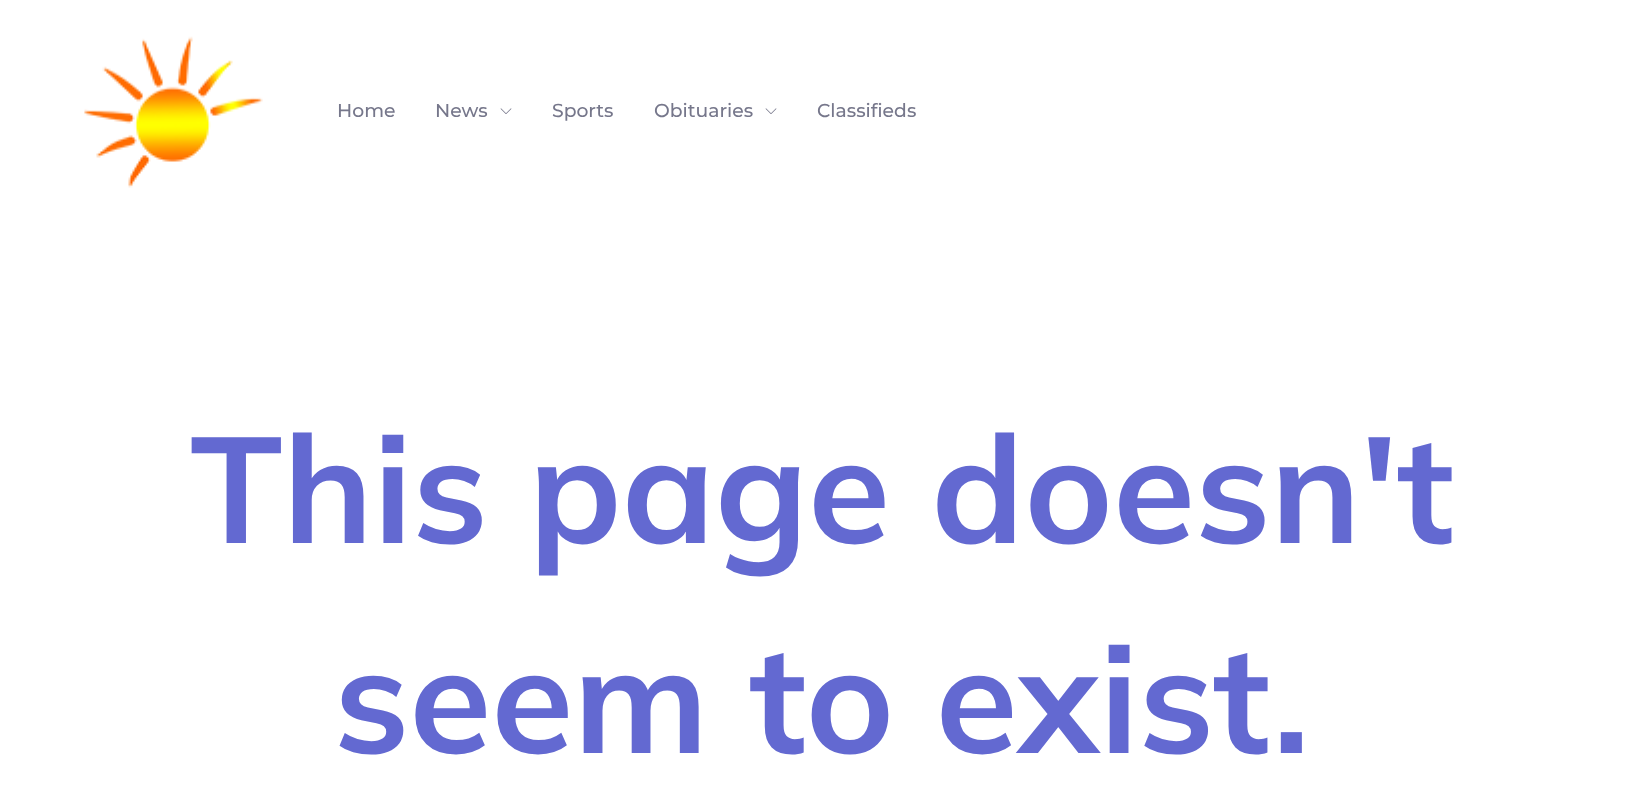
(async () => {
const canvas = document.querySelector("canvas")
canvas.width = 1643
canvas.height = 791
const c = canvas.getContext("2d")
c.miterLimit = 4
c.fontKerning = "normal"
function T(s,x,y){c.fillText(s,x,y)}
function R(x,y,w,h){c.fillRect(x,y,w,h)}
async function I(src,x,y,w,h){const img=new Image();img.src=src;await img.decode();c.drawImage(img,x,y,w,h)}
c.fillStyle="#fff"
R(0,0,1643,791)
await I("1.png",84,36,179,152)
c.font="500 18.75px Montserrat"
c.fillStyle="#76778b"
T("Home",337,117)
T("News",435,117)
await I("2.png",500,108,12,6)
T("Sports",552,117)
T("Obituaries",654,117)
await I("2.png",765,108,12,6)
T("Classifieds",817,117)
c.font="200 150px Mulish"
c.fillStyle="#6369d1"
T("This page doesn't",190,543)
T("seem to exist.",334,753)
})()
